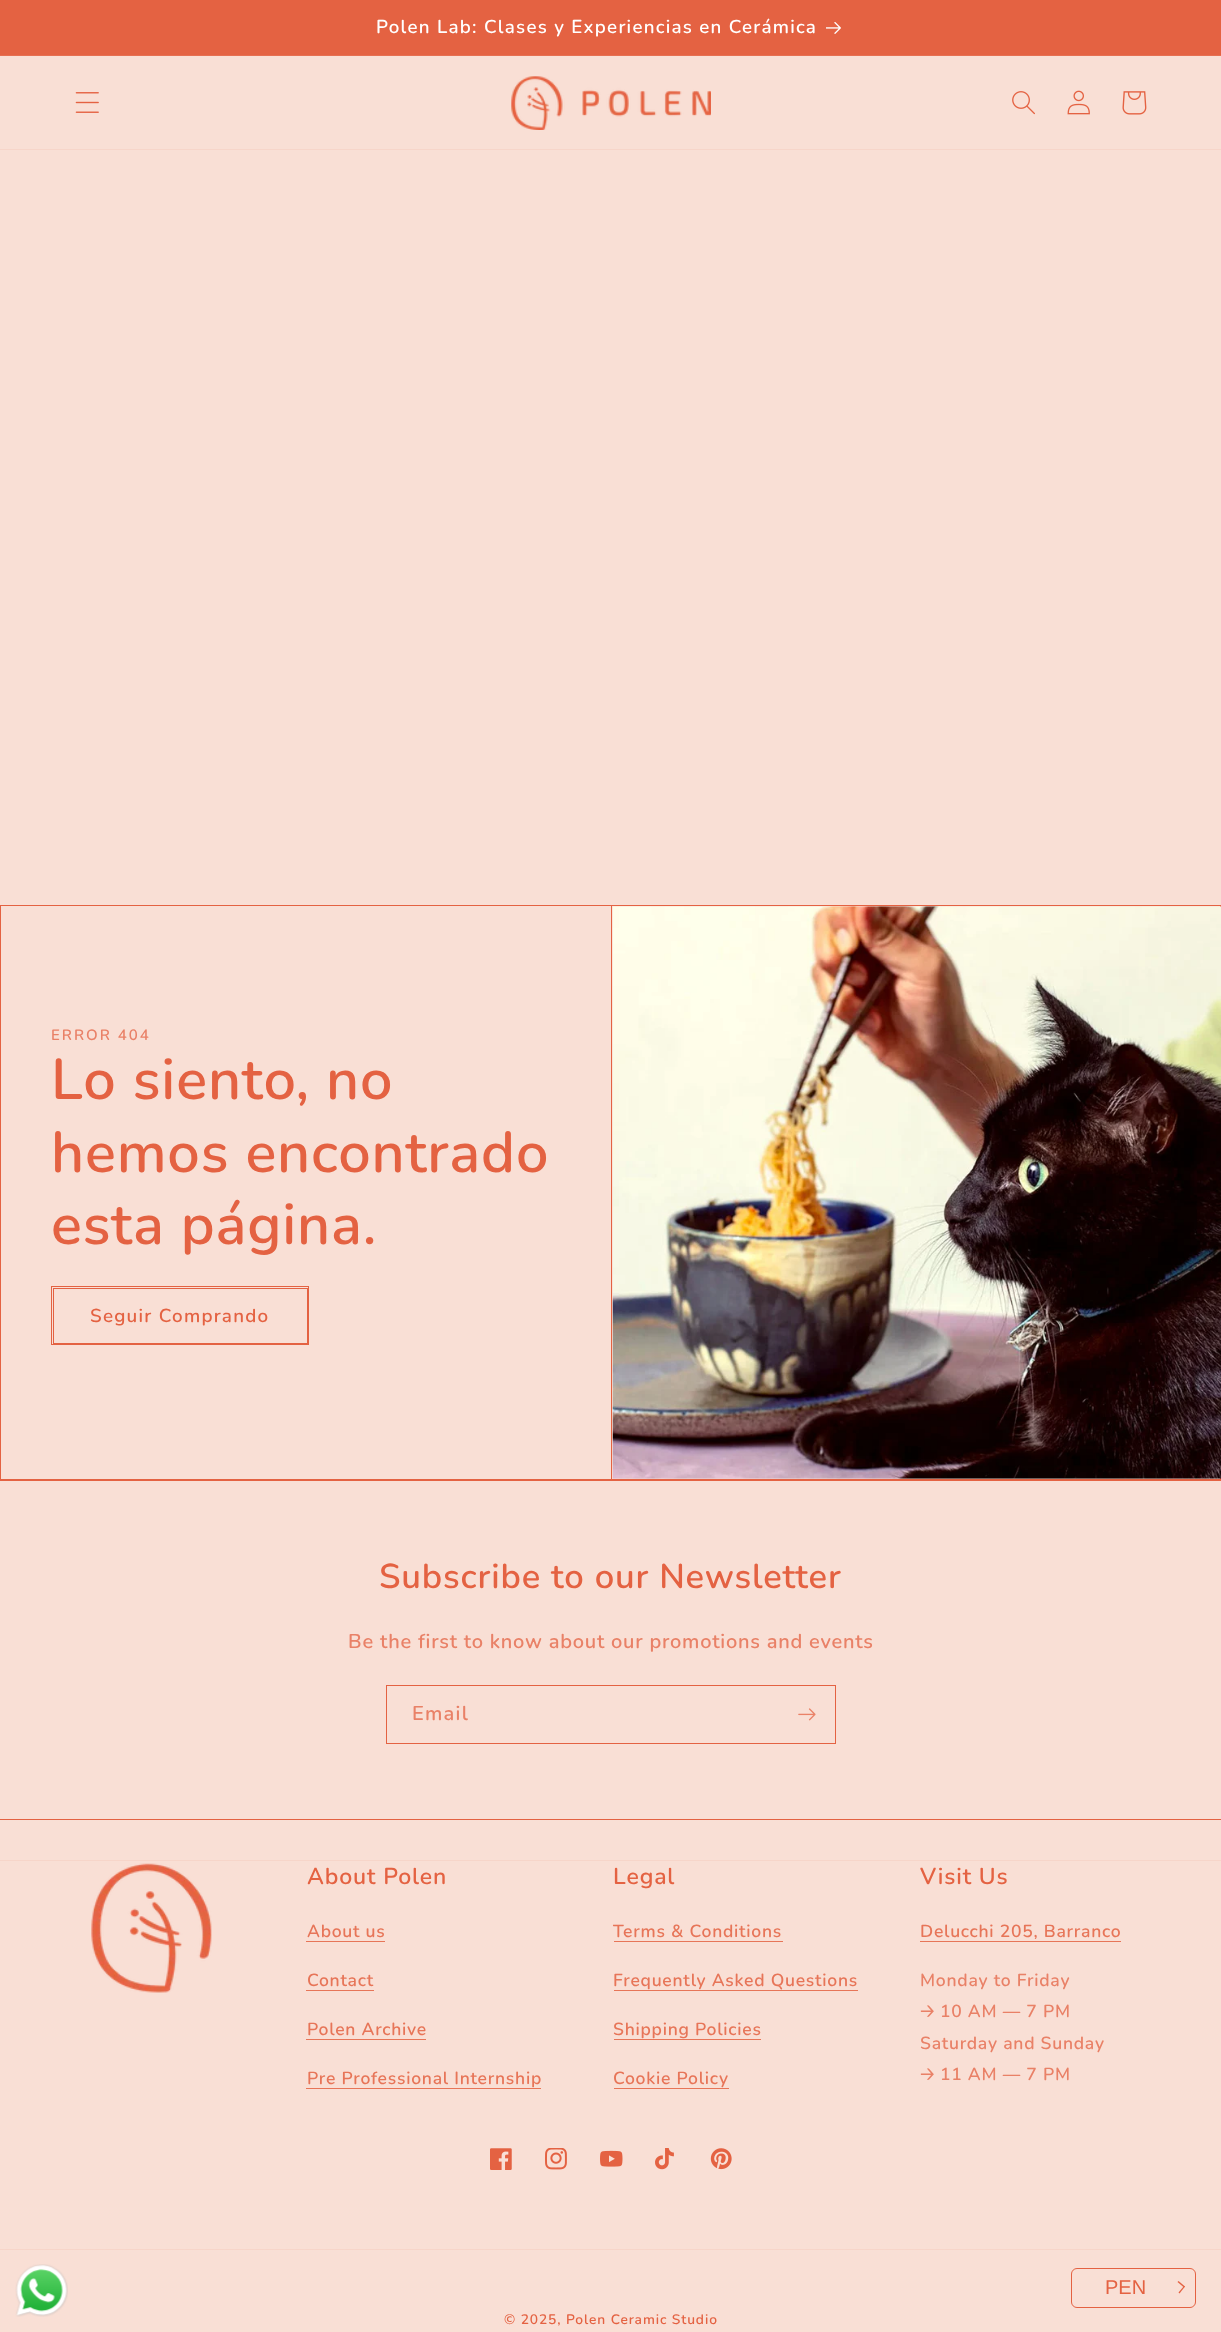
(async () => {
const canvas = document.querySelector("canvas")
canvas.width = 1221
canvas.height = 2332
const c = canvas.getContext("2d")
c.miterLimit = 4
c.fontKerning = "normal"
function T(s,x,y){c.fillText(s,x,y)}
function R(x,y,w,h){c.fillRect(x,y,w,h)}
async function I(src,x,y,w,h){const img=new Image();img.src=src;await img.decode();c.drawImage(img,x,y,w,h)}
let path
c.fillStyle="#f9dfd5"
R(0,0,1221,2332)
c.fillStyle="#e46242"
R(0,0,1221,55)
c.fillStyle="#e66f51"
R(0,55,1221,1)
c.letterSpacing="1.25px"
c.font="600 18.7px Nunito"
c.fillStyle="#fff"
T("Polen Lab: Clases y Experiencias en Cerámica",376,33)
await I("1.png",826,22,15,12)
c.fillStyle="#f7d5c9"
R(0,149,1221,1)
await I("2.png",75,92,24,21)
await I("3.png",511,76,200,54)
await I("4.png",1012,91,23,24)
await I("5.png",1067,90,23,25)
await I("6.png",1122,91,25,24)
c.fillStyle="#e46242"
R(0,905,611,1)
R(0,1479,611,1)
R(0,905,1,575)
c.letterSpacing="2px"
c.font="600 15px Nunito"
c.fillStyle="#e98167"
T("ERROR 404",51,1040)
c.letterSpacing="0.85px"
c.font="600 57.5px Nunito"
c.fillStyle="#e46242"
T("Lo siento, no",51,1099)
T("hemos encontrado",51,1172)
T("esta página.",51,1244)
c.strokeStyle="#e46242"
c.strokeRect(51.5,1286.5,257,58)
c.strokeRect(53.5,1288.5,254,55)
c.letterSpacing="1.25px"
c.font="600 18.75px Nunito"
T("Seguir Comprando",90,1322)
c.strokeRect(611.5,905.5,609,574)
await I("7.png",612,906,609,573)
R(0,1480,1221,1)
R(0,1819,1221,1)
c.letterSpacing="0.85px"
c.font="600 34.5px Nunito"
T("Subscribe to our Newsletter",379,1588)
c.letterSpacing="0.75px"
c.font="600 20px Nunito"
c.fillStyle="#e98167"
T("Be the first to know about our promotions and events",348,1648)
c.strokeRect(386.5,1685.5,449,58)
c.letterSpacing="1.25px"
T("Email",412,1720)
await I("8.png",798,1708,18,13)
await I("9.png",15,2264,53,53)
c.fillStyle="#f7d5c9"
R(0,1860,1221,1)
await I("10.png",91,1863,121,130)
c.letterSpacing="0.85px"
c.font="600 23px Nunito"
c.fillStyle="#e46242"
T("About Polen",307,1884)
c.letterSpacing="0.75px"
c.font="600 17.5px Nunito"
c.fillStyle="#e77558"
T("About us",307,1937)
R(306,1941,79,1)
T("Contact",307,1986)
R(306,1990,68,1)
T("Polen Archive",307,2035)
R(306,2039,120,1)
T("Pre Professional Internship",307,2084)
R(306,2088,235,1)
c.letterSpacing="0.85px"
c.font="600 23px Nunito"
c.fillStyle="#e46242"
T("Legal",613,1884)
c.letterSpacing="0.75px"
c.font="600 17.5px Nunito"
c.fillStyle="#e77558"
T("Terms & Conditions",613,1937)
R(614,1941,169,1)
T("Frequently Asked Questions",613,1986)
R(614,1990,244,1)
T("Shipping Policies",613,2035)
R(614,2039,147,1)
T("Cookie Policy",613,2084)
R(614,2088,115,1)
c.letterSpacing="0.85px"
c.font="600 23px Nunito"
c.fillStyle="#e46242"
T("Visit Us",920,1884)
c.letterSpacing="0.75px"
c.font="600 17.5px Nunito"
c.fillStyle="#e77558"
T("Delucchi 205, Barranco",920,1937)
R(920,1941,201,1)
c.fillStyle="#e98167"
T("Monday to Friday",920,1986)
c.font="bold 17.5px 'Noto Sans Symbols 2'"
T("🡢",920,2017)
c.font="600 17.5px Nunito"
T("10 AM — 7 PM",940,2017)
T("Saturday and Sunday",920,2049)
c.font="bold 17.5px 'Noto Sans Symbols 2'"
T("🡢",920,2080)
c.font="600 17.5px Nunito"
T("11 AM — 7 PM",940,2080)
await I("11.png",490,2148,22,22)
await I("12.png",545,2148,22,22)
await I("13.png",600,2150,23,17)
await I("14.png",655,2148,19,22)
await I("15.png",710,2148,22,22)
c.fillStyle="#f7d5c9"
R(0,2249,1221,1)
c.letterSpacing="0.9px"
c.font="600 13.75px Nunito"
c.fillStyle="#e46242"
T("© 2025, Polen Ceramic Studio",504,2324)
c.beginPath()
c.roundRect(1071.5,2268.5,124,39,5.5)
c.stroke()
c.letterSpacing="0px"
c.font="20px Liberation Sans"
T("PEN",1105,2294)
path = new Path2D("M1177.5 2282l1-1l6.5 5.5l-1 1z")
c.fill(path)
path = new Path2D("M1178.5 2292.5l5.5-6.5l1 .5l-5.5 7z")
c.fill(path)
})()
